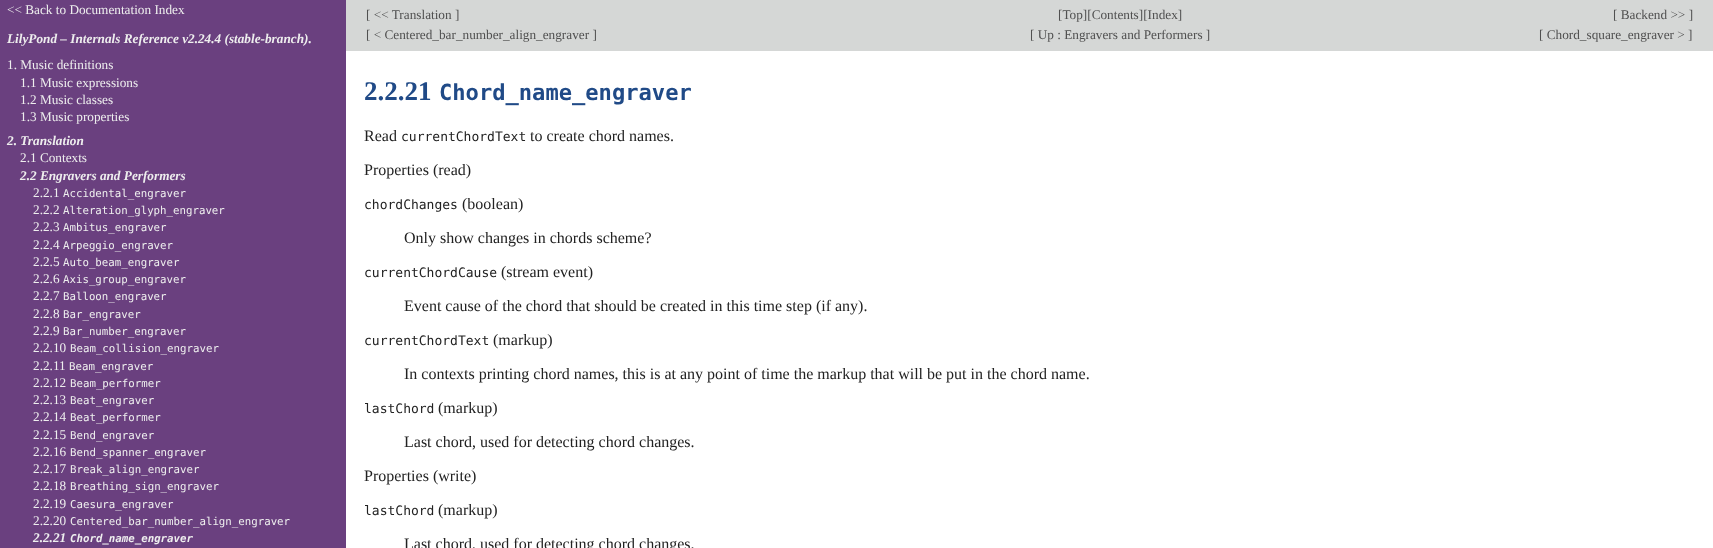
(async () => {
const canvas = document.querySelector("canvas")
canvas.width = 1713
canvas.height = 548
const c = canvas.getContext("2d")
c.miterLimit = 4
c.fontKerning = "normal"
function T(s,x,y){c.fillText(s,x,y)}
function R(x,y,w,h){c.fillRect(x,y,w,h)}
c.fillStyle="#fff"
R(0,0,1713,548)
c.fillStyle="#6a407f"
R(0,0,346,548)
c.font="13.25px Liberation Serif"
c.fillStyle="#eee"
T("<< Back to Documentation Index",7,14)
c.font="italic bold 13.25px Liberation Serif"
T("LilyPond – Internals Reference v2.24.4 (stable-branch).",7,43)
c.font="13.25px Liberation Serif"
T("1. Music definitions",7,69)
T("1.1 Music expressions",20,87)
T("1.2 Music classes",20,104)
T("1.3 Music properties",20,121)
c.font="italic bold 13.25px Liberation Serif"
T("2. Translation",7,145)
c.font="13.25px Liberation Serif"
T("2.1 Contexts",20,162)
c.font="italic bold 13.25px Liberation Serif"
T("2.2 Engravers and Performers",20,180)
c.font="13.25px Liberation Serif"
T("2.2.1",33,197)
c.font="10.75px DejaVu Sans Mono"
T("Accidental_engraver",63,197)
c.font="13.25px Liberation Serif"
T("2.2.2",33,214)
c.font="10.75px DejaVu Sans Mono"
T("Alteration_glyph_engraver",63,214)
c.font="13.25px Liberation Serif"
T("2.2.3",33,231)
c.font="10.75px DejaVu Sans Mono"
T("Ambitus_engraver",63,231)
c.font="13.25px Liberation Serif"
T("2.2.4",33,249)
c.font="10.75px DejaVu Sans Mono"
T("Arpeggio_engraver",63,249)
c.font="13.25px Liberation Serif"
T("2.2.5",33,266)
c.font="10.75px DejaVu Sans Mono"
T("Auto_beam_engraver",63,266)
c.font="13.25px Liberation Serif"
T("2.2.6",33,283)
c.font="10.75px DejaVu Sans Mono"
T("Axis_group_engraver",63,283)
c.font="13.25px Liberation Serif"
T("2.2.7",33,300)
c.font="10.75px DejaVu Sans Mono"
T("Balloon_engraver",63,300)
c.font="13.25px Liberation Serif"
T("2.2.8",33,318)
c.font="10.75px DejaVu Sans Mono"
T("Bar_engraver",63,318)
c.font="13.25px Liberation Serif"
T("2.2.9",33,335)
c.font="10.75px DejaVu Sans Mono"
T("Bar_number_engraver",63,335)
c.font="13.25px Liberation Serif"
T("2.2.10",33,352)
c.font="10.75px DejaVu Sans Mono"
T("Beam_collision_engraver",70,352)
c.font="13.25px Liberation Serif"
T("2.2.11",33,370)
c.font="10.75px DejaVu Sans Mono"
T("Beam_engraver",69,370)
c.font="13.25px Liberation Serif"
T("2.2.12",33,387)
c.font="10.75px DejaVu Sans Mono"
T("Beam_performer",70,387)
c.font="13.25px Liberation Serif"
T("2.2.13",33,404)
c.font="10.75px DejaVu Sans Mono"
T("Beat_engraver",70,404)
c.font="13.25px Liberation Serif"
T("2.2.14",33,421)
c.font="10.75px DejaVu Sans Mono"
T("Beat_performer",70,421)
c.font="13.25px Liberation Serif"
T("2.2.15",33,439)
c.font="10.75px DejaVu Sans Mono"
T("Bend_engraver",70,439)
c.font="13.25px Liberation Serif"
T("2.2.16",33,456)
c.font="10.75px DejaVu Sans Mono"
T("Bend_spanner_engraver",70,456)
c.font="13.25px Liberation Serif"
T("2.2.17",33,473)
c.font="10.75px DejaVu Sans Mono"
T("Break_align_engraver",70,473)
c.font="13.25px Liberation Serif"
T("2.2.18",33,490)
c.font="10.75px DejaVu Sans Mono"
T("Breathing_sign_engraver",70,490)
c.font="13.25px Liberation Serif"
T("2.2.19",33,508)
c.font="10.75px DejaVu Sans Mono"
T("Caesura_engraver",70,508)
c.font="13.25px Liberation Serif"
T("2.2.20",33,525)
c.font="10.75px DejaVu Sans Mono"
T("Centered_bar_number_align_engraver",70,525)
c.font="italic bold 13.25px Liberation Serif"
T("2.2.21",33,542)
c.font="italic bold 10.75px DejaVu Sans Mono"
T("Chord_name_engraver",70,542)
c.fillStyle="#d5d7d6"
R(346,0,1367,51)
c.font="13.25px Liberation Serif"
c.fillStyle="#505050"
T("[ << Translation ]",366,19)
T("[Top][Contents][Index]",1058,19)
T("[ Backend >> ]",1613,19)
T("[ < Centered_bar_number_align_engraver ]",366,39)
T("[ Up : Engravers and Performers ]",1030,39)
T("[ Chord_square_engraver > ]",1539,39)
c.font="bold 27px Liberation Serif"
c.fillStyle="#204a87"
T("2.2.21",364,100)
c.font="bold 22.1px DejaVu Sans Mono"
T("Chord_name_engraver",439,100)
c.font="16px Liberation Serif"
c.fillStyle="#222"
T("Read",364,141)
c.font="13px DejaVu Sans Mono"
T("currentChordText",401,141)
c.font="16px Liberation Serif"
T("to create chord names.",530,141)
T("Properties (read)",364,175)
c.font="13px DejaVu Sans Mono"
T("chordChanges",364,209)
c.font="16px Liberation Serif"
T("(boolean)",462,209)
T("Only show changes in chords scheme?",404,243)
c.font="13px DejaVu Sans Mono"
T("currentChordCause",364,277)
c.font="16px Liberation Serif"
T("(stream event)",501,277)
T("Event cause of the chord that should be created in this time step (if any).",404,311)
c.font="13px DejaVu Sans Mono"
T("currentChordText",364,345)
c.font="16px Liberation Serif"
T("(markup)",493,345)
T("In contexts printing chord names, this is at any point of time the markup that will be put in the chord name.",404,379)
c.font="13px DejaVu Sans Mono"
T("lastChord",364,413)
c.font="16px Liberation Serif"
T("(markup)",438,413)
T("Last chord, used for detecting chord changes.",404,447)
T("Properties (write)",364,481)
c.font="13px DejaVu Sans Mono"
T("lastChord",364,515)
c.font="16px Liberation Serif"
T("(markup)",438,515)
T("Last chord, used for detecting chord changes.",404,549)
})()
